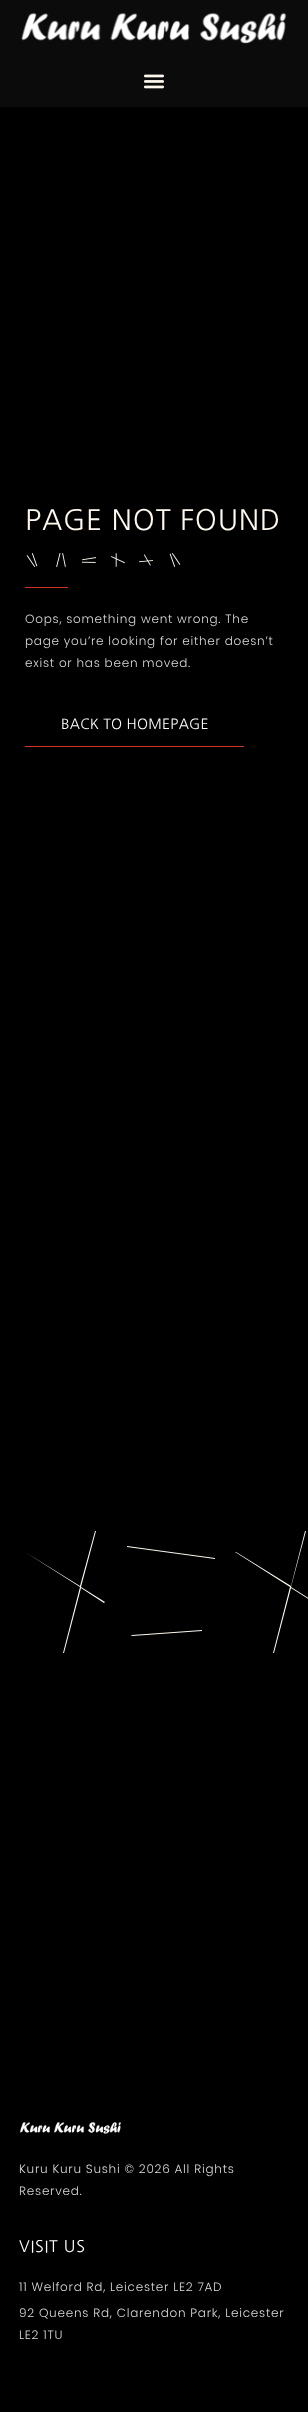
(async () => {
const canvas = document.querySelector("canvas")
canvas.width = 308
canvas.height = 2412
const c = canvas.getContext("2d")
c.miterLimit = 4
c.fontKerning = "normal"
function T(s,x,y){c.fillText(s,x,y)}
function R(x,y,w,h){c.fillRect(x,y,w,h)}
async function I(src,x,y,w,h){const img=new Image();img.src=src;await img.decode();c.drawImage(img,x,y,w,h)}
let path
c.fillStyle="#000"
R(0,0,308,2412)
c.fillStyle="#0b0b0b"
R(0,0,308,107)
await I("1.png",21,12,266,32)
await I("2.png",143,74,22,15)
c.letterSpacing="0.75px"
c.font="28px NanumGothic"
c.fillStyle="#fef8ee"
T("PAGE NOT FOUND",25,530)
await I("3.png",26,553,12,14)
await I("4.png",56,553,10,14)
await I("5.png",82,557,14,6)
await I("6.png",111,553,14,14)
await I("7.png",139,554,14,12)
await I("8.png",169,553,12,14)
c.fillStyle="#cb3522"
R(25,587,43,1)
c.font="300 12px Poppins"
c.fillStyle="#dadada"
T("Oops, something went wrong. The",25,623)
T("page you’re looking for either doesn’t",25,645)
T("exist or has been moved.",25,667)
c.fillStyle="#cb3522"
R(25,746,219,1)
c.letterSpacing="0.25px"
c.font="14px NanumGothic"
c.fillStyle="#fff"
T("BACK TO HOMEPAGE",61,729)
c.fillStyle="#fef8ee"
path = new Path2D("M96 1531h-1l-15 55l-55-34l55 35l-17 66h1l17-65l23 15l1-1l-24-15z")
c.fill(path)
path = new Path2D("M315 1602l-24-15l15-56h-1l-14 55l-55-34h-1l55 35l-17 66h1l17-65l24 15z")
c.fill(path)
path = new Path2D("M132 1635h-1l1 1l70-5v-1z")
c.fill(path)
path = new Path2D("M127 1547v-1l88 12v1z")
c.fill(path)
await I("9.png",19,2122,102,12)
c.letterSpacing="0.75px"
c.font="300 12px Poppins"
c.fillStyle="#dadada"
T("Kuru Kuru Sushi © 2026 All Rights",19,2173)
T("Reserved.",19,2195)
c.font="16px NanumGothic"
c.fillStyle="#fff"
T("VISIT US",19,2252)
c.font="300 12px Poppins"
c.fillStyle="#dadada"
T("11 Welford Rd, Leicester LE2 7AD",19,2291)
T("92 Queens Rd, Clarendon Park, Leicester",19,2317)
T("LE2 1TU",19,2339)
})()
